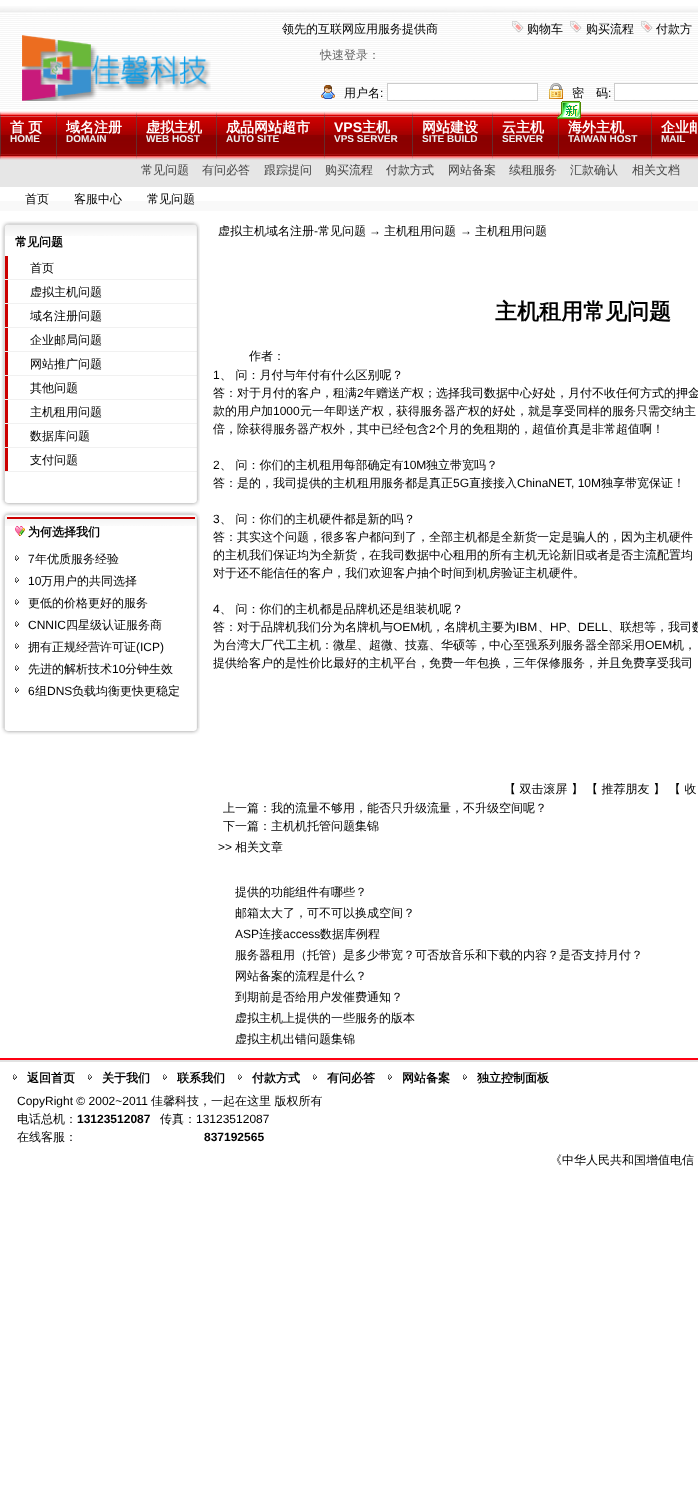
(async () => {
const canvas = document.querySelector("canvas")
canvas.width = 698
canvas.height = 1498
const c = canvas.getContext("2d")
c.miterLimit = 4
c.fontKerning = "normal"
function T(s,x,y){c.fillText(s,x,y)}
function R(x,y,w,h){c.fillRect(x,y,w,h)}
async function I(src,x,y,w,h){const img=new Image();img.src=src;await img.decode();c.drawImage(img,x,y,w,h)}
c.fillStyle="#fff"
R(0,0,698,1498)
await I("1.png",0,6,698,104)
await I("2.png",22,35,189,66)
c.font="500 12px WenQuanYi Zen Hei"
c.fillStyle="#000"
T("领先的互联网应用服务提供商",282,33)
await I("3.png",512,21,12,12)
T("购物车",527,33)
await I("4.png",570,21,12,12)
T("购买流程",586,33)
await I("5.png",641,21,12,12)
T("付款方",656,33)
c.fillStyle="#666"
T("快速登录：",320,59)
await I("6.png",321,85,14,14)
c.fillStyle="#000"
T("用户名",344,97)
c.font="12px Liberation Sans"
T(":",380,97)
c.fillStyle="#fff"
R(388,84,149,15)
c.strokeStyle="#ccc"
c.strokeRect(387.5,83.5,150,17)
await I("7.png",549,83,14,16)
c.font="500 12px WenQuanYi Zen Hei"
c.fillStyle="#000"
T("密　码",572,97)
c.font="12px Liberation Sans"
T(":",608,97)
c.fillStyle="#fff"
R(615,84,83,15)
c.strokeRect(614.5,83.5,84,17)
await I("8.png",0,110,698,53)
await I("9.png",0,112,1,47)
c.font="bold 14px WenQuanYi Zen Hei"
T("首 页",10,132)
c.font="bold 10px Liberation Sans"
c.fillStyle="#eee"
T("HOME",10,142)
await I("9.png",56,112,1,47)
c.font="bold 14px WenQuanYi Zen Hei"
c.fillStyle="#fff"
T("域名注册",66,132)
c.font="bold 10px Liberation Sans"
c.fillStyle="#eee"
T("DOMAIN",66,142)
await I("9.png",136,112,1,47)
c.font="bold 14px WenQuanYi Zen Hei"
c.fillStyle="#fff"
T("虚拟主机",146,132)
c.font="bold 10px Liberation Sans"
c.fillStyle="#eee"
T("WEB HOST",146,142)
await I("9.png",216,112,1,47)
c.font="bold 14px WenQuanYi Zen Hei"
c.fillStyle="#fff"
T("成品网站超市",226,132)
c.font="bold 10px Liberation Sans"
c.fillStyle="#eee"
T("AUTO SITE",226,142)
await I("9.png",324,112,1,47)
c.font="bold 14px Liberation Sans"
c.fillStyle="#fff"
T("VPS",334,132)
c.font="bold 14px WenQuanYi Zen Hei"
T("主机",362,132)
c.font="bold 10px Liberation Sans"
c.fillStyle="#eee"
T("VPS SERVER",334,142)
await I("9.png",412,112,1,47)
c.font="bold 14px WenQuanYi Zen Hei"
c.fillStyle="#fff"
T("网站建设",422,132)
c.font="bold 10px Liberation Sans"
c.fillStyle="#eee"
T("SITE BUILD",422,142)
await I("9.png",492,112,1,47)
await I("9.png",558,112,1,47)
await I("10.png",557,101,24,18)
c.font="bold 14px WenQuanYi Zen Hei"
c.fillStyle="#fff"
T("云主机",502,132)
c.font="bold 10px Liberation Sans"
c.fillStyle="#eee"
T("SERVER",502,142)
c.font="bold 14px WenQuanYi Zen Hei"
c.fillStyle="#fff"
T("海外主机",568,132)
c.font="bold 10px Liberation Sans"
c.fillStyle="#eee"
T("TAIWAN HOST",568,142)
await I("9.png",651,112,1,47)
c.font="bold 14px WenQuanYi Zen Hei"
c.fillStyle="#fff"
T("企业邮",661,132)
c.font="bold 10px Liberation Sans"
c.fillStyle="#eee"
T("MAIL",661,142)
c.fillStyle="#e6e6e6"
R(0,163,698,24)
c.font="500 12px WenQuanYi Zen Hei"
c.fillStyle="#454545"
T("常见问题",141,174)
T("有问必答",202,174)
T("跟踪提问",264,174)
T("购买流程",325,174)
T("付款方式",386,174)
T("网站备案",448,174)
T("续租服务",509,174)
T("汇款确认",570,174)
T("相关文档",632,174)
c.fillStyle="#f9f9f9"
R(0,201,698,10)
c.fillStyle="#000"
T("首页",25,203)
T("客服中心",74,203)
T("常见问题",147,203)
await I("11.png",1,236,199,264)
await I("12.png",1,221,199,15)
c.font="bold 12px WenQuanYi Zen Hei"
T("常见问题",15,246)
await I("13.png",5,256,192,24)
c.font="500 12px WenQuanYi Zen Hei"
T("首页",30,272)
await I("13.png",5,280,192,24)
T("虚拟主机问题",30,296)
await I("13.png",5,304,192,24)
T("域名注册问题",30,320)
await I("13.png",5,328,192,24)
T("企业邮局问题",30,344)
await I("13.png",5,352,192,24)
T("网站推广问题",30,368)
await I("13.png",5,376,192,24)
T("其他问题",30,392)
await I("13.png",5,400,192,24)
T("主机租用问题",30,416)
await I("13.png",5,424,192,24)
T("数据库问题",30,440)
await I("13.png",5,448,192,24)
T("支付问题",30,464)
await I("14.png",1,500,199,8)
await I("15.png",1,526,199,202)
await I("16.png",1,511,199,15)
await I("17.png",15,526,10,10)
c.font="bold 12px WenQuanYi Zen Hei"
T("为何选择我们",28,536)
await I("18.png",15,555,4,6)
c.font="12px Liberation Sans"
T("7",28,563)
c.font="500 12px WenQuanYi Zen Hei"
T("年优质服务经验",35,563)
await I("18.png",15,577,4,6)
c.font="12px Liberation Sans"
T("10",28,585)
c.font="500 12px WenQuanYi Zen Hei"
T("万用户的共同选择",41,585)
await I("18.png",15,599,4,6)
T("更低的价格更好的服务",28,607)
await I("18.png",15,621,4,6)
c.font="12px Liberation Sans"
T("CNNIC",28,629)
c.font="500 12px WenQuanYi Zen Hei"
T("四星级认证服务商",66,629)
await I("18.png",15,643,4,6)
T("拥有正规经营许可证",28,651)
c.font="12px Liberation Sans"
T("(ICP)",136,651)
await I("18.png",15,665,4,6)
c.font="500 12px WenQuanYi Zen Hei"
T("先进的解析技术",28,673)
c.font="12px Liberation Sans"
T("10",112,673)
c.font="500 12px WenQuanYi Zen Hei"
T("分钟生效",125,673)
await I("18.png",15,687,4,6)
c.font="12px Liberation Sans"
T("6",28,695)
c.font="500 12px WenQuanYi Zen Hei"
T("组",35,695)
c.font="12px Liberation Sans"
T("DNS",47,695)
c.font="500 12px WenQuanYi Zen Hei"
T("负载均衡更快更稳定",72,695)
await I("14.png",1,728,199,8)
T("虚拟主机域名注册",218,235)
c.font="12px Liberation Sans"
T("-",314,235)
c.font="500 12px WenQuanYi Zen Hei"
T("常见问题",318,235)
c.font="12px Liberation Sans"
T("→",369,235)
c.font="500 12px WenQuanYi Zen Hei"
T("主机租用问题",384,235)
c.font="12px Liberation Sans"
T("→",460,235)
c.font="500 12px WenQuanYi Zen Hei"
T("主机租用问题",475,235)
c.font="bold 22px WenQuanYi Zen Hei"
T("主机租用常见问题",495,319)
c.font="500 12px WenQuanYi Zen Hei"
T("作者：",249,360)
c.font="12px Liberation Sans"
T("1",213,379)
c.font="500 12px WenQuanYi Zen Hei"
T("、 问：月付与年付有什么区别呢？",220,379)
T("答：对于月付的客户，租满",213,397)
c.font="12px Liberation Sans"
T("2",357,397)
c.font="500 12px WenQuanYi Zen Hei"
T("年赠送产权；选择我司数据中心好处，月付不收任何方式的押金",364,397)
T("款的用户加",213,415)
c.font="12px Liberation Sans"
T("1000",273,415)
c.font="500 12px WenQuanYi Zen Hei"
T("元一年即送产权，获得服务器产权的好处，就是享受同样的服务只需交纳主",300,415)
T("倍，除获得服务器产权外，其中已经包含",213,433)
c.font="12px Liberation Sans"
T("2",429,433)
c.font="500 12px WenQuanYi Zen Hei"
T("个月的免租期的，超值价真是非常超值啊！",436,433)
c.font="12px Liberation Sans"
T("2",213,469)
c.font="500 12px WenQuanYi Zen Hei"
T("、 问：你们的主机租用每部确定有",220,469)
c.font="12px Liberation Sans"
T("10M",403,469)
c.font="500 12px WenQuanYi Zen Hei"
T("独立带宽吗？",426,469)
T("答：是的，我司提供的主机租用服务都是真正",213,487)
c.font="12px Liberation Sans"
T("5G",453,487)
c.font="500 12px WenQuanYi Zen Hei"
T("直接接入",469,487)
c.font="12px Liberation Sans"
T("ChinaNET, 10M",517,487)
c.font="500 12px WenQuanYi Zen Hei"
T("独享带宽保证！",601,487)
c.font="12px Liberation Sans"
T("3",213,523)
c.font="500 12px WenQuanYi Zen Hei"
T("、 问：你们的主机硬件都是新的吗？",220,523)
T("答：其实这个问题，很多客户都问到了，全部主机都是全新货一定是骗人的，因为主机硬件",213,541)
T("的主机我们保证均为全新货，在我司数据中心租用的所有主机无论新旧或者是否主流配置均",213,559)
T("对于还不能信任的客户，我们欢迎客户抽个时间到机房验证主机硬件。",213,577)
c.font="12px Liberation Sans"
T("4",213,613)
c.font="500 12px WenQuanYi Zen Hei"
T("、 问：你们的主机都是品牌机还是组装机呢？",220,613)
T("答：对于品牌机我们分为名牌机与",213,631)
c.font="12px Liberation Sans"
T("OEM",393,631)
c.font="500 12px WenQuanYi Zen Hei"
T("机，名牌机主要为",420,631)
c.font="12px Liberation Sans"
T("IBM",516,631)
T("HP",550,631)
T("DELL",578,631)
c.font="500 12px WenQuanYi Zen Hei"
T("、联想等，我司数",608,631)
T("、",538,631)
T("、",566,631)
T("为台湾大厂代工主机：微星、超微、技嘉、华硕等，中心至强系列服务器全部采用",213,649)
c.font="12px Liberation Sans"
T("OEM",645,649)
c.font="500 12px WenQuanYi Zen Hei"
T("机，",672,649)
T("提供给客户的是性价比最好的主机平台，免费一年包换，三年保修服务，并且免费享受我司",213,667)
T("【 双击滚屏 】",504,793)
T("【 推荐朋友 】 【 收",586,793)
T("上一篇：我的流量不够用，能否只升级流量，不升级空间呢？",223,812)
T("下一篇：主机机托管问题集锦",223,830)
c.font="12px Liberation Sans"
T(">>",218,851)
c.font="500 12px WenQuanYi Zen Hei"
T("相关文章",235,851)
T("提供的功能组件有哪些？",235,896)
T("邮箱太大了，可不可以换成空间？",235,917)
c.font="12px Liberation Sans"
T("ASP",235,938)
c.font="500 12px WenQuanYi Zen Hei"
T("连接",259,938)
c.font="12px Liberation Sans"
T("access",283,938)
c.font="500 12px WenQuanYi Zen Hei"
T("数据库例程",320,938)
T("服务器租用（托管）是多少带宽？可否放音乐和下载的内容？是否支持月付？",235,959)
T("网站备案的流程是什么？",235,980)
T("到期前是否给用户发催费通知？",235,1001)
T("虚拟主机上提供的一些服务的版本",235,1022)
T("虚拟主机出错问题集锦",235,1043)
c.fillStyle="#ff0012"
R(0,1058,698,2)
c.fillStyle="#e2e2e2"
R(0,1060,698,2)
await I("18.png",13,1074,4,6)
c.font="bold 12px WenQuanYi Zen Hei"
c.fillStyle="#000"
T("返回首页",27,1082)
await I("18.png",88,1074,4,6)
T("关于我们",102,1082)
await I("18.png",163,1074,4,6)
T("联系我们",177,1082)
await I("18.png",238,1074,4,6)
T("付款方式",252,1082)
await I("18.png",313,1074,4,6)
T("有问必答",327,1082)
await I("18.png",388,1074,4,6)
T("网站备案",402,1082)
await I("18.png",463,1074,4,6)
T("独立控制面板",477,1082)
c.font="12px Liberation Sans"
T("CopyRight © 2002~2011",17,1105)
c.font="500 12px WenQuanYi Zen Hei"
T("佳馨科技，一起在这里 版权所有",151,1105)
T("电话总机：",17,1123)
c.font="bold 12px Liberation Sans"
T("13123512087",77,1123)
c.font="500 12px WenQuanYi Zen Hei"
T("传真：",160,1123)
c.font="12px Liberation Sans"
T("13123512087",196,1123)
c.font="500 12px WenQuanYi Zen Hei"
T("在线客服：",17,1141)
c.font="bold 12px Liberation Sans"
T("837192565",204,1141)
c.font="500 12px WenQuanYi Zen Hei"
T("《中华人民共和国增值电信",550,1164)
})()
